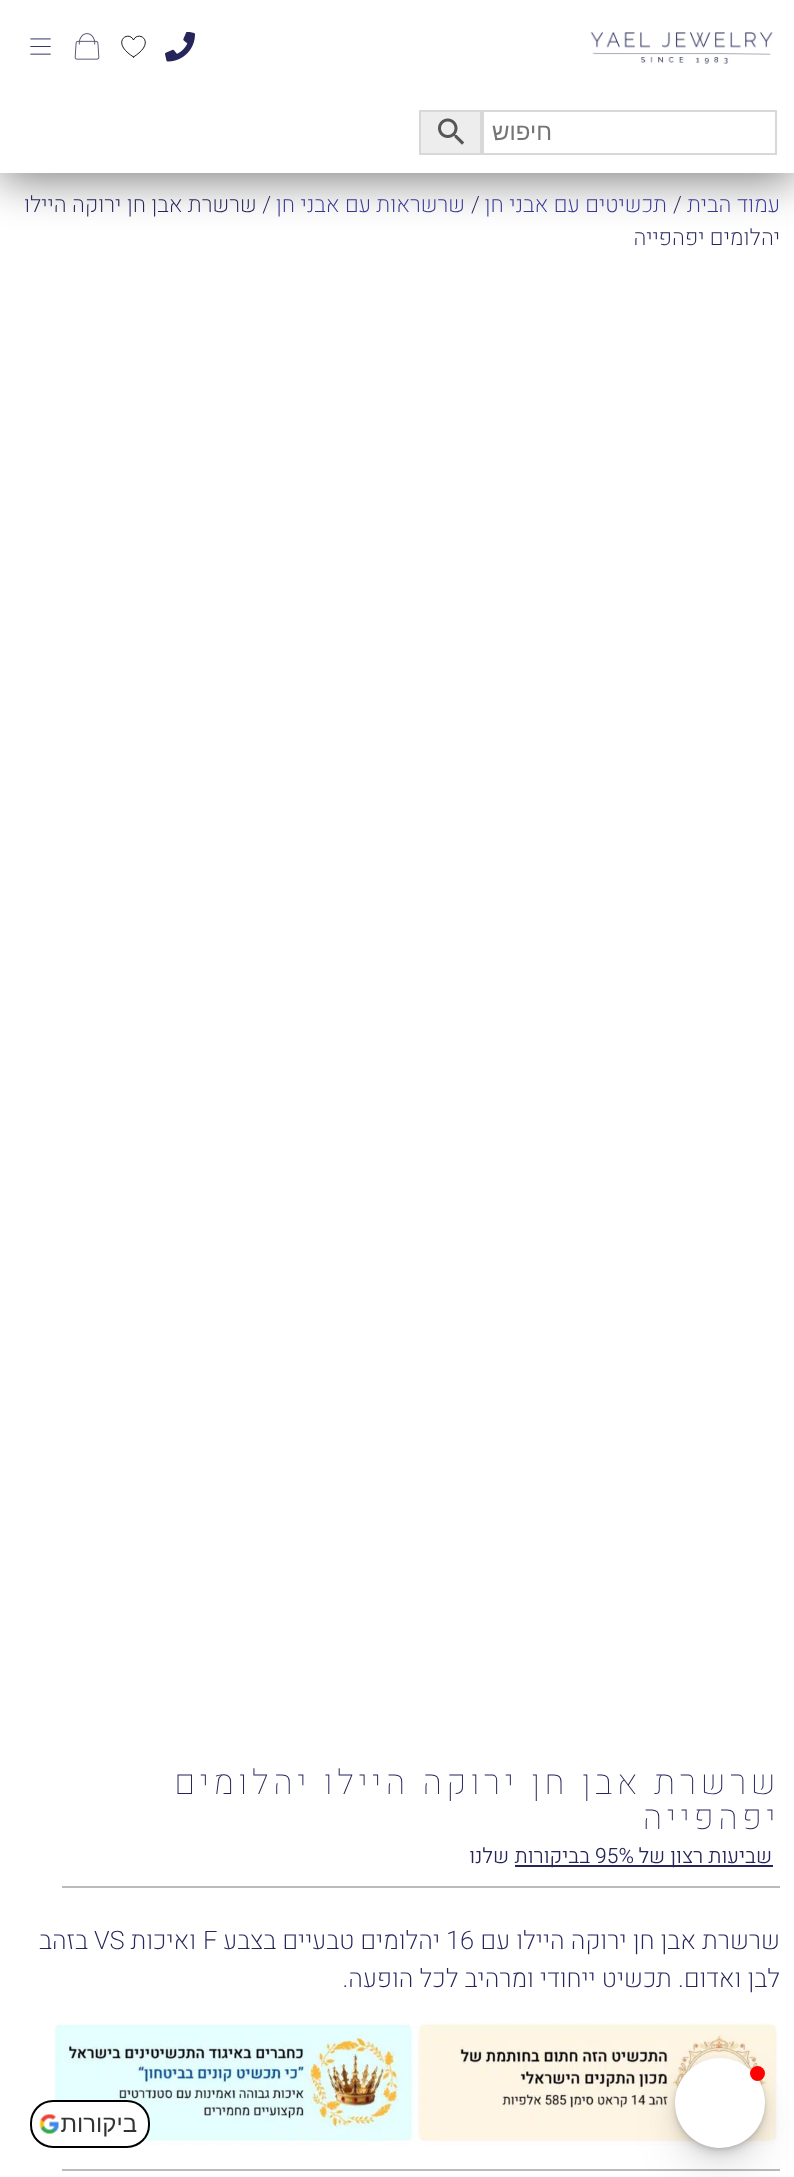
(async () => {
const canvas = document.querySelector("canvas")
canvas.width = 794
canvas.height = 2177
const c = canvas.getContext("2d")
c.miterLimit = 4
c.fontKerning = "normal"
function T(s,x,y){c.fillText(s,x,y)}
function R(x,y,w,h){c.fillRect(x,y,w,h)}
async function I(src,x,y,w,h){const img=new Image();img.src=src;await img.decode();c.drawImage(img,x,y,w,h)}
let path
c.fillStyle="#fff"
R(0,0,794,2177)
c.fillStyle="#00000080"
c.filter="blur(22.5px)"
c.beginPath()
c.rect(0,8,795,172)
c.fill()
c.filter="none"
c.fillStyle="#fff"
R(0,0,794,173)
await I("1.png",590,32,183,32)
await I("2.png",165,32,30,30)
path = new Path2D("M133.5 57c-4-2.5-7.5-5.5-10-9c-6.5-10.5 6.5-16 10-8c3.5-8 16.5-2.5 10 8c-2.5 3.5-6 6.5-10 9z")
c.strokeStyle="#000"
c.lineWidth=0.9
c.lineCap="round"
c.lineJoin="round"
c.stroke(path)
await I("3.png",74,33,26,27)
await I("4.png",30,38,21,17)
c.strokeStyle="#d8d8d8"
c.lineWidth=2
c.lineJoin="miter"
c.strokeRect(483,111,293,43)
c.direction="rtl"
c.font="24px Liberation Sans"
c.fillStyle="#757575"
T("חיפוש",552,140)
c.fillStyle="#ededed"
c.beginPath()
c.rect(420,111,61,43)
c.fill()
c.stroke()
await I("5.png",438,118,27,27)
c.font="200 22.5px Heebo"
c.fillStyle="#373595"
T("עמוד הבית",780,212)
c.direction="ltr"
c.fillStyle="#26255b"
T("/",673,212)
c.direction="rtl"
c.fillStyle="#373595"
T("תכשיטים עם אבני חן",667,212)
c.direction="ltr"
c.fillStyle="#26255b"
T("/",471,212)
c.direction="rtl"
c.fillStyle="#373595"
T("שרשראות עם אבני חן",465,212)
c.fillStyle="#26255b"
T("/ שרשרת אבן חן ירוקה היילו",271,212)
T("יהלומים יפהפייה",780,245)
c.letterSpacing="4.5px"
c.font="100 34.5px Heebo"
T("שרשרת אבן חן ירוקה היילו יהלומים",780,1794)
T("יפהפייה",780,1829)
R(515,1865,258,2)
c.letterSpacing="0px"
c.font="300 21px Heebo"
T("שביעות רצון של",772,1863)
c.direction="ltr"
T("95%",595,1863)
c.direction="rtl"
T("בביקורות",590,1863)
T("שלנו",509,1863)
c.fillStyle="#bbb"
R(62,1886,718,2)
c.font="200 25.5px Heebo"
c.fillStyle="#26255b"
T("שרשרת אבן חן ירוקה היילו עם",780,1949)
c.direction="ltr"
T("16",446,1949)
c.direction="rtl"
T("יהלומים טבעיים בצבע",440,1949)
c.direction="ltr"
T("F",203,1949)
c.direction="rtl"
T("ואיכות",196,1949)
c.direction="ltr"
T("VS",94,1949)
c.direction="rtl"
T("בזהב",88,1949)
T("לבן ואדום. תכשיט ייחודי ומרהיב לכל הופעה.",780,1987)
await I("6.png",54,2023,724,122)
c.fillStyle="#bbb"
R(62,2169,718,2)
c.fillStyle="#00000012"
c.filter="blur(24px)"
c.beginPath()
c.roundRect(675,2082,90,90,45)
c.fill()
c.filter="none"
c.filter="blur(12px)"
c.beginPath()
c.roundRect(675,2070,90,90,45)
c.fill()
c.filter="none"
c.filter="blur(6px)"
c.beginPath()
c.roundRect(675,2064,90,90,45)
c.fill()
c.filter="none"
c.filter="blur(3px)"
c.beginPath()
c.roundRect(675,2061,90,90,45)
c.fill()
c.filter="none"
c.filter="blur(1.5px)"
c.beginPath()
c.roundRect(675,2060,90,90,45)
c.fill()
c.filter="none"
c.fillStyle="#fff"
c.beginPath()
c.arc(720,2103,45,0,7)
c.fill()
c.fillStyle="#f00"
c.beginPath()
c.arc(757.5,2073.5,7.5,0,7)
c.fill()
c.fillStyle="#fff"
c.beginPath()
c.roundRect(31,2101,118,46,22)
c.fill()
c.strokeStyle="#000"
c.stroke()
c.font="24px Liberation Sans"
c.fillStyle="#333"
T("ביקורות",137,2132)
await I("7.png",39,2114,21,21)
})()
